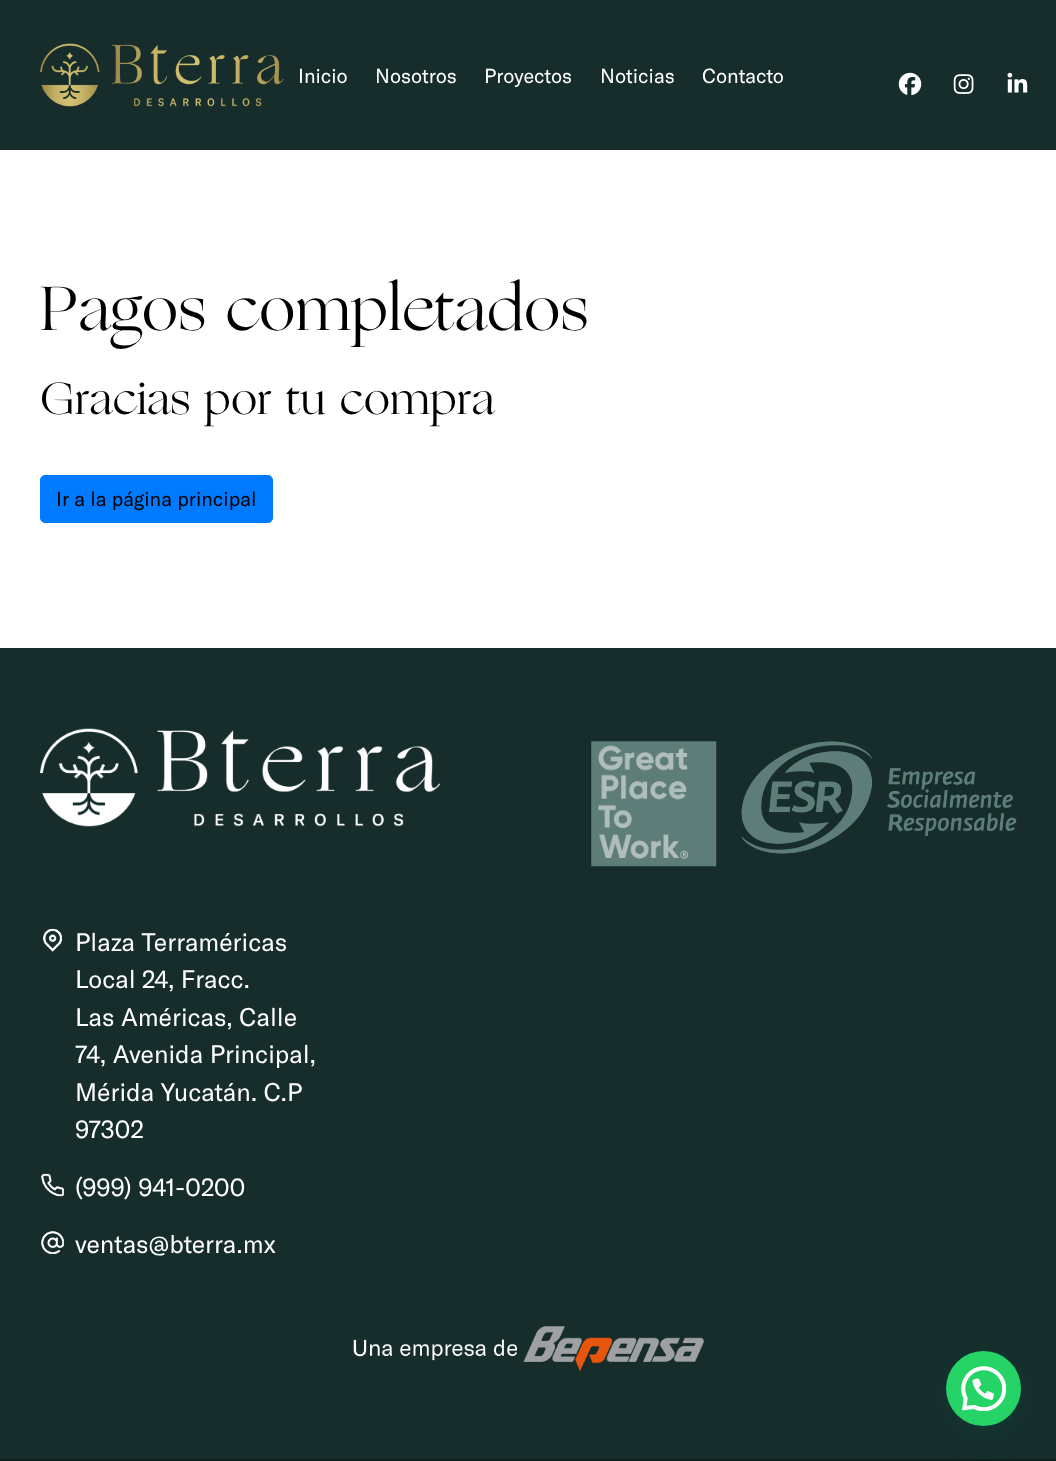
(async () => {
const canvas = document.querySelector("canvas")
canvas.width = 1056
canvas.height = 1461
const c = canvas.getContext("2d")
c.miterLimit = 4
c.fontKerning = "normal"
function T(s,x,y){c.fillText(s,x,y)}
function R(x,y,w,h){c.fillRect(x,y,w,h)}
async function I(src,x,y,w,h){const img=new Image();img.src=src;await img.decode();c.drawImage(img,x,y,w,h)}
c.fillStyle="#fff"
R(0,0,1056,1461)
c.fillStyle="#162d2b"
R(0,0,1056,150)
await I("1.png",40,43,244,64)
c.font="20px GT America"
c.fillStyle="#fff"
T("Inicio",298,83)
T("Nosotros",375,83)
T("Proyectos",484,83)
T("Noticias",600,83)
T("Contacto",702,83)
await I("2.png",898,72,24,24)
await I("3.png",953,74,21,20)
await I("4.png",1007,72,21,21)
c.font="62.5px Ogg"
c.fillStyle="#000"
T("Pagos completados",40,330)
c.font="45px Ogg"
T("Gracias por tu compra",40,414)
c.fillStyle="#007bff"
c.beginPath()
c.roundRect(40.5,475.5,232,47,4.5)
c.fill()
c.strokeStyle="#007bff"
c.stroke()
c.font="20px GT America"
c.fillStyle="#000"
T("Ir a la página principal",56,506)
c.fillStyle="#162d2b"
R(0,648,1056,811)
await I("5.png",40,728,400,99)
await I("6.png",591,741,126,126)
await I("7.png",741,741,276,113)
await I("8.png",43,928,19,24)
c.font="25px GT America"
c.fillStyle="#fff"
T("Plaza Terraméricas",75,951)
T("Local 24, Fracc.",75,988)
T("Las Américas, Calle",75,1026)
T("74, Avenida Principal,",75,1063)
T("Mérida Yucatán. C.P",75,1101)
T("97302",75,1138)
await I("9.png",41,1173,23,24)
T("(999) 941-0200",75,1196)
await I("10.png",41,1231,23,23)
T("ventas@bterra.mx",75,1253)
await I("11.png",353,1326,351,46)
c.fillStyle="#0e201d"
R(0,1459,1056,2)
c.fillStyle="#075e543d"
c.filter="blur(15px)"
c.beginPath()
c.roundRect(948,1359,75,75,37.5)
c.fill()
c.filter="none"
c.fillStyle="#25d366"
c.beginPath()
c.arc(983.5,1388.5,37.5,0,7)
c.fill()
await I("12.png",961,1366,45,45)
})()
